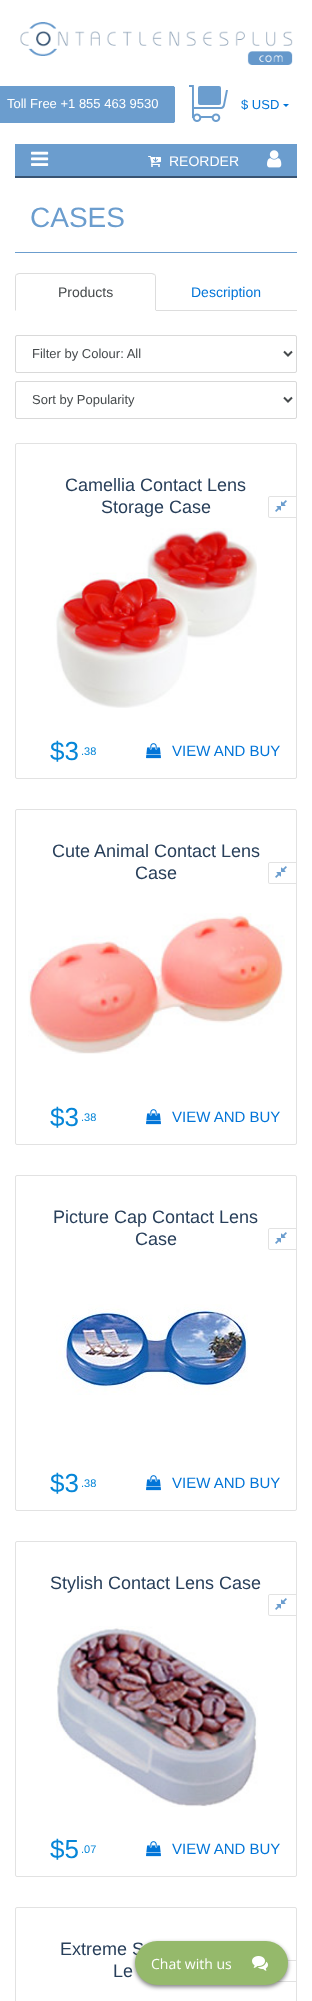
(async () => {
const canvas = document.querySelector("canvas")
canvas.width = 312
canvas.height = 2001
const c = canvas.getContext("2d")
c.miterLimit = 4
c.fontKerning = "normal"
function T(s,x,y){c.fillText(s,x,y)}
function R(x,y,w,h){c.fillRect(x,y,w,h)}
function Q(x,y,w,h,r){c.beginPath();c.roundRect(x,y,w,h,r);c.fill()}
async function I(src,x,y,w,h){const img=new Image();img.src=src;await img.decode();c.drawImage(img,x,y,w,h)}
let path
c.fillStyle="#fff"
R(0,0,312,2001)
await I("1.png",20,22,273,43)
c.fillStyle="#6b9dce"
path = new Path2D("M-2 86h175c1 0 2 1 2 2v33c0 1-1 2-2 2h-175z")
c.fill(path)
R(173,86,1,1)
R(174,87,1,35)
R(173,122,1,1)
c.font="13px Liberation Sans"
c.fillStyle="#fff"
T("Toll Free +1 855 463 9530",7,108)
await I("2.png",189,85,39,37)
c.fillStyle="#6b9dce"
Q(198,86,23,19,2)
c.fillStyle="#0275d8"
T("$ USD",241,109)
path = new Path2D("M283 104h6l-3 3z")
c.fill(path)
c.fillStyle="#6b9dce"
R(15,144,282,32)
c.fillStyle="#385473"
R(15,176,282,2)
await I("3.png",31,151,18,15)
await I("4.png",148,156,13,11)
c.font="14px Liberation Sans"
c.fillStyle="#fff"
T("REORDER",169,166)
await I("5.png",267,150,15,18)
c.fillStyle="#6b9dce"
R(15,252,282,1)
c.font="28px Liberation Sans"
T("CASES",30,227)
c.fillStyle="#ddd"
R(156,310,141,1)
path = new Path2D("M19 273l-3 1l1 1l2-1h133l2 1l1-1l-3-1z")
c.fill(path)
path = new Path2D("M156 311v-34c0-1-.5-2-1-3l-1 1c1 0 1 1 1 2v33z")
c.fill(path)
c.fillStyle="#fff"
path = new Path2D("M156 311l-1-1h-139l-1 1z")
c.fill(path)
c.fillStyle="#ddd"
path = new Path2D("M15 311l1-1v-33c0-1 0-2 1-2l-1-1c-.5 1-1 2-1 3z")
c.fill(path)
c.font="14px Liberation Sans"
c.fillStyle="#464a4c"
T("Products",58,297)
c.fillStyle="#0275d8"
T("Description",191,297)
c.beginPath()
c.roundRect(15.5,335.5,281,37,1.5)
c.strokeStyle="#d9d9d9"
c.stroke()
path = new Path2D("M284 351.5l4 4l4-4")
c.strokeStyle="#464a4c"
c.lineWidth=2
c.stroke(path)
c.font="13px Liberation Sans"
c.fillStyle="#464a4c"
T("Filter by Colour: All",32,358)
c.beginPath()
c.roundRect(15.5,381.5,281,37,1.5)
c.strokeStyle="#d9d9d9"
c.lineWidth=1
c.stroke()
path = new Path2D("M284 397.5l4 4l4-4")
c.strokeStyle="#464a4c"
c.lineWidth=2
c.stroke(path)
T("Sort by Popularity",32,404)
c.beginPath()
c.roundRect(15.5,443.5,281,335,1.5)
c.strokeStyle="#e2e2e2"
c.lineWidth=1
c.stroke()
c.font="18px Liberation Sans"
c.fillStyle="#283f5a"
T("Camellia Contact Lens",65,491)
T("Storage Case",101,513)
c.fillStyle="#e2e2e2"
path = new Path2D("M270 496c-1 0-2 1-2 2v18c0 1 1 2 2 2h26v-1h-26c-.5 0-1-.5-1-1v-18c0-.5 .5-1 1-1h26v-1z")
c.fill(path)
await I("6.png",275,500,12,12)
await I("7.png",54,528,203,180)
c.font="26px Liberation Sans"
c.fillStyle="#0686d8"
T("$3",50,760)
c.font="11px Liberation Sans"
T(".38",81,755)
await I("8.png",146,743,15,16)
c.font="15px Liberation Sans"
c.fillStyle="#0275d8"
T("VIEW AND BUY",172,756)
c.beginPath()
c.roundRect(15.5,809.5,281,335,1.5)
c.stroke()
c.font="18px Liberation Sans"
c.fillStyle="#283f5a"
T("Cute Animal Contact Lens",52,857)
T("Case",135,879)
c.fillStyle="#e2e2e2"
path = new Path2D("M270 862c-1 0-2 1-2 2v18c0 1 1 2 2 2h26v-1h-26c-.5 0-1-.5-1-1v-18c0-.5 .5-1 1-1h26v-1z")
c.fill(path)
await I("6.png",275,866,12,12)
await I("9.png",28,913,257,141)
c.font="26px Liberation Sans"
c.fillStyle="#0686d8"
T("$3",50,1126)
c.font="11px Liberation Sans"
T(".38",81,1121)
await I("8.png",146,1109,15,16)
c.font="15px Liberation Sans"
c.fillStyle="#0275d8"
T("VIEW AND BUY",172,1122)
c.beginPath()
c.roundRect(15.5,1175.5,281,335,1.5)
c.stroke()
c.font="18px Liberation Sans"
c.fillStyle="#283f5a"
T("Picture Cap Contact Lens",53,1223)
T("Case",135,1245)
c.fillStyle="#e2e2e2"
path = new Path2D("M270 1228c-1 0-2 1-2 2v18c0 1 1 2 2 2h26v-1h-26c-.5 0-1-.5-1-1v-18c0-.5 .5-1 1-1h26v-1z")
c.fill(path)
await I("6.png",275,1232,12,12)
await I("10.png",56,1304,192,91)
c.font="26px Liberation Sans"
c.fillStyle="#0686d8"
T("$3",50,1492)
c.font="11px Liberation Sans"
T(".38",81,1487)
await I("8.png",146,1475,15,16)
c.font="15px Liberation Sans"
c.fillStyle="#0275d8"
T("VIEW AND BUY",172,1488)
c.beginPath()
c.roundRect(15.5,1541.5,281,335,1.5)
c.stroke()
c.font="18px Liberation Sans"
c.fillStyle="#283f5a"
T("Stylish Contact Lens Case",50,1589)
c.fillStyle="#e2e2e2"
path = new Path2D("M270 1594c-1 0-2 1-2 2v18c0 1 1 2 2 2h26v-1h-26c-.5 0-1-.5-1-1v-18c0-.5 .5-1 1-1h26v-1z")
c.fill(path)
await I("6.png",275,1598,12,12)
await I("11.png",56,1626,202,181)
c.font="26px Liberation Sans"
c.fillStyle="#0686d8"
T("$5",50,1858)
c.font="11px Liberation Sans"
T(".07",81,1853)
await I("8.png",146,1841,15,16)
c.font="15px Liberation Sans"
c.fillStyle="#0275d8"
T("VIEW AND BUY",172,1854)
c.beginPath()
c.roundRect(15.5,1907.5,281,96,1.5)
c.stroke()
c.font="18px Liberation Sans"
c.fillStyle="#283f5a"
T("Extreme S",60,1955)
T("Le",113,1977)
c.fillStyle="#e2e2e2"
path = new Path2D("M270 1960c-1 0-2 1-2 2v18c0 1 1 2 2 2h26v-1h-26c-.5 0-1-.5-1-1v-18c0-.5 .5-1 1-1h26v-1z")
c.fill(path)
c.fillStyle="#00000080"
c.filter="blur(2px)"
c.beginPath()
c.roundRect(135,1943,153,44,22)
c.fill()
c.filter="none"
c.fillStyle="#95b96b"
Q(135,1941,153,44,22)
c.font="14px Open Sans"
c.fillStyle="#fff"
T("Chat with us",151,1969)
await I("12.png",252,1956,16,15)
})()
